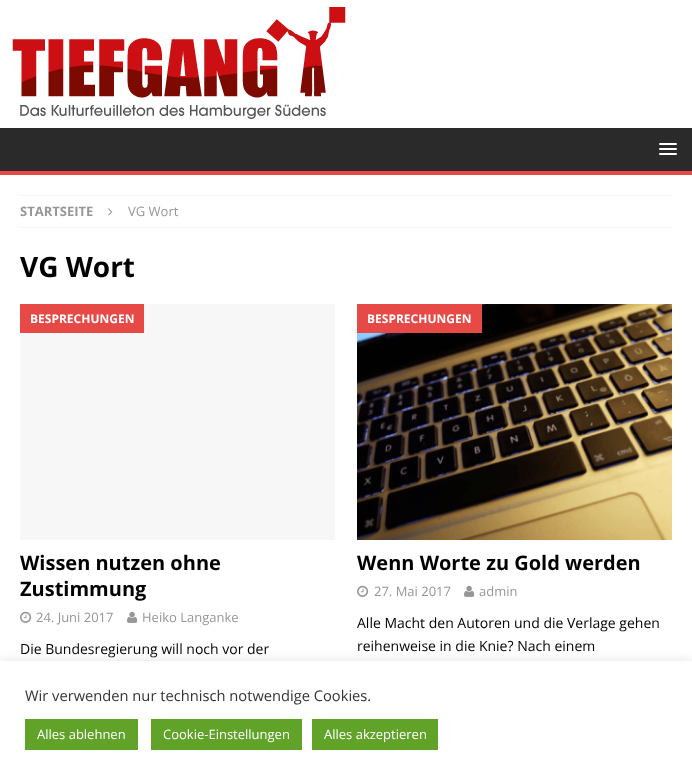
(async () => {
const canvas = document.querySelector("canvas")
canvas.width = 692
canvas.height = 780
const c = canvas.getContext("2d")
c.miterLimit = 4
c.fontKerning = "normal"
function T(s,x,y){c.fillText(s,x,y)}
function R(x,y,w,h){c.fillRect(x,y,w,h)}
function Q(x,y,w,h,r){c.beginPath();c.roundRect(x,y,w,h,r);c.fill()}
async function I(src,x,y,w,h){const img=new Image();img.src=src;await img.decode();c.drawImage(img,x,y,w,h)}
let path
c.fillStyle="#fff"
R(0,0,692,780)
await I("1.png",12,7,334,112)
c.fillStyle="#2a2a2a"
R(0,128,692,43)
c.fillStyle="#e64946"
R(0,171,692,4)
c.fillStyle="#fff"
Q(659,143,18,2,1)
Q(659,148,18,2,1)
Q(659,153,18,2,1)
path = new Path2D("M20 195.5h652")
c.strokeStyle="#ebebeb"
c.setLineDash([1,1])
c.stroke(path)
path = new Path2D("M20 227.5h652")
c.stroke(path)
c.font="bold 13px Open Sans"
c.fillStyle="#979797"
T("STARTSEITE",20,216)
await I("2.png",108,208,5,8)
c.font="13px Open Sans"
T("VG Wort",128,216)
c.font="bold 28px Open Sans"
c.fillStyle="#000"
T("VG Wort",20,277)
c.fillStyle="#f7f7f7"
R(20,304,315,236)
c.fillStyle="#e64946"
R(20,304,124,29)
c.font="bold 12px Open Sans"
c.fillStyle="#fff"
T("BESPRECHUNGEN",30,323)
c.font="bold 20px Open Sans"
c.fillStyle="#000"
T("Wissen nutzen ohne",20,570)
T("Zustimmung",20,596)
await I("3.png",20,611,12,12)
c.font="13px Open Sans"
c.fillStyle="#979797"
T("24. Juni 2017",36,622)
await I("4.png",127,611,11,12)
T("Heiko Langanke",142,622)
c.font="14px Open Sans"
c.fillStyle="#000"
T("Die Bundesregierung will noch vor der",20,654)
await I("5.png",357,304,315,236)
c.fillStyle="#e64946"
R(357,304,125,29)
c.font="bold 12px Open Sans"
c.fillStyle="#fff"
T("BESPRECHUNGEN",367,323)
c.font="bold 20px Open Sans"
c.fillStyle="#000"
T("Wenn Worte zu Gold werden",357,570)
await I("3.png",357,585,12,12)
c.font="13px Open Sans"
c.fillStyle="#979797"
T("27. Mai 2017",374,596)
await I("4.png",464,585,11,12)
T("admin",479,596)
c.font="14px Open Sans"
c.fillStyle="#000"
T("Alle Macht den Autoren und die Verlage gehen",357,628)
T("reihenweise in die Knie? Nach einem",357,651)
c.fillStyle="#acabab4d"
c.filter="blur(5px)"
c.beginPath()
c.rect(0,660,692,119)
c.fill()
c.filter="none"
c.fillStyle="#fff"
R(0,661,692,119)
c.font="14.7px Open Sans"
c.fillStyle="#333"
T("Wir verwenden nur technisch notwendige Cookies.",25,701)
c.fillStyle="#61a229"
R(25,719,113,31)
c.font="13px Open Sans"
c.fillStyle="#fff"
T("Alles ablehnen",37,739)
c.fillStyle="#61a229"
R(151,719,151,31)
c.fillStyle="#fff"
T("Cookie-Einstellungen",163,739)
c.fillStyle="#61a229"
R(312,719,126,31)
c.fillStyle="#fff"
T("Alles akzeptieren",324,739)
})()
